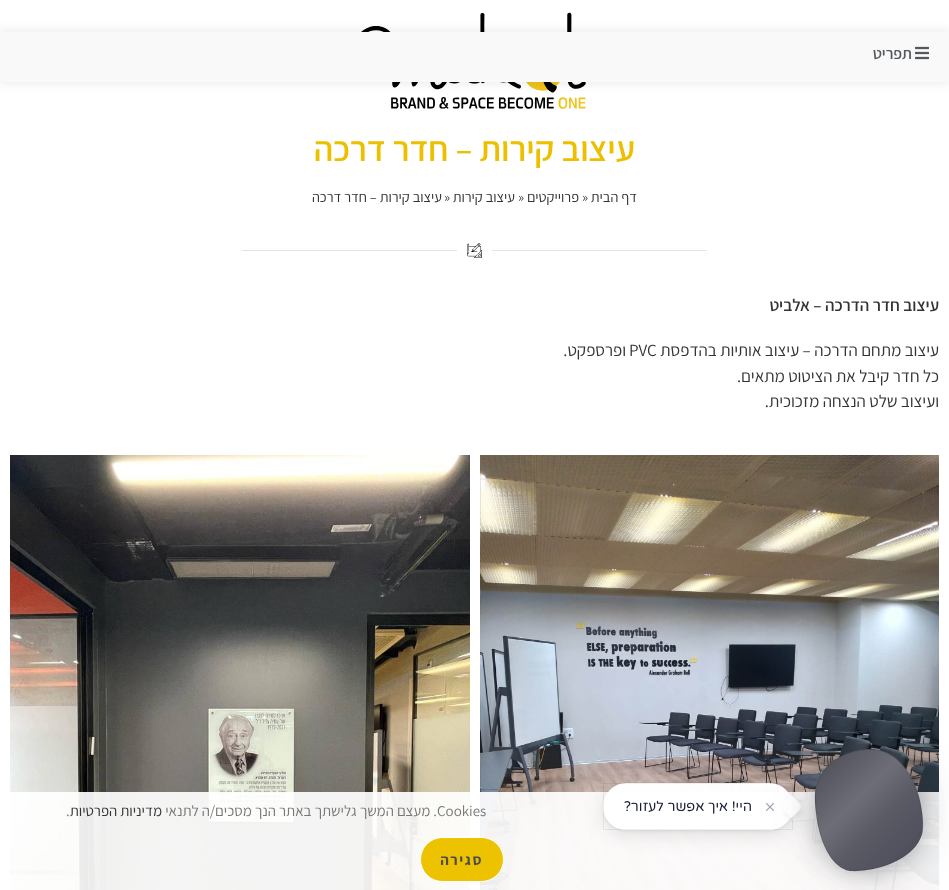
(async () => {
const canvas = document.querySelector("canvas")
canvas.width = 949
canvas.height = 890
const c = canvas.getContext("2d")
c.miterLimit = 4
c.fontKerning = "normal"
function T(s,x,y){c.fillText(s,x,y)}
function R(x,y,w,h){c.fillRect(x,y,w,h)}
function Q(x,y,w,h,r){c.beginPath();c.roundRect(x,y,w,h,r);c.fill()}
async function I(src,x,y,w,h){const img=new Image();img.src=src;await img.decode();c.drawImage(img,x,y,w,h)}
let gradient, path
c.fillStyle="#fff"
R(0,0,949,890)
await I("2.png",361,12,225,97)
c.fillStyle="#0000001a"
c.filter="blur(6px)"
c.beginPath()
c.rect(0,32,949,50)
c.fill()
c.filter="none"
c.fillStyle="#f9f9f9"
R(0,32,949,50)
await I("1.png",915,46,14,14)
c.direction="rtl"
c.font="600 16px Assistant"
c.fillStyle="#54595f"
T("תפריט",912,59)
c.font="600 35px Assistant"
c.fillStyle="#ecbf00"
T("עיצוב קירות – חדר דרכה",635,161)
c.font="14.5px Assistant"
c.fillStyle="#333"
T("דף הבית",637,202)
c.direction="ltr"
T("»",582,202)
c.direction="rtl"
T("פרוייקטים",579,202)
c.direction="ltr"
T("»",518,202)
c.direction="rtl"
T("עיצוב קירות",515,202)
c.direction="ltr"
T("»",444,202)
c.direction="rtl"
T("עיצוב קירות – חדר דרכה",442,202)
c.fillStyle="#e4e4e4"
R(492,250,215,1)
await I("3.png",467,243,15,15)
R(242,250,215,1)
c.font="600 17px Assistant"
c.fillStyle="#333"
T("עיצוב חדר הדרכה – אלביט",939,311)
c.font="17px Assistant"
T("עיצוב מתחם הדרכה – עיצוב אותיות בהדפסת",939,356)
c.direction="ltr"
T("PVC",629,356)
c.direction="rtl"
T("ופרספקט.",626,356)
T("כל חדר קיבל את הציטוט מתאים.",939,382)
T("ועיצוב שלט הנצחה מזכוכית.",939,407)
await I("4.png",480,455,459,435)
await I("5.png",10,455,460,435)
c.fillStyle="#ffffffeb"
R(10,792,929,98)
c.save()
path = new Path2D("M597 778h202v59h-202zm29.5 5h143c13 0 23.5 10.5 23.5 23.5c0 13-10.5 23.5-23.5 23.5h-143c-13 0-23.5-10.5-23.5-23.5c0-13 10.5-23.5 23.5-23.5z")
c.clip(path,"evenodd")
c.fillStyle="#00000014"
c.filter="blur(1.5px)"
c.beginPath()
c.roundRect(603,784,190,47,23.5)
c.fill()
c.filter="none"
c.restore()
c.save()
path = new Path2D("M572 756h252v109h-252zm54.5 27h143c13 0 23.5 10.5 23.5 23.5c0 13-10.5 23.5-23.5 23.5h-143c-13 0-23.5-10.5-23.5-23.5c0-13 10.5-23.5 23.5-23.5z")
c.clip(path,"evenodd")
c.fillStyle="#0000001f"
c.filter="blur(10px)"
c.beginPath()
c.roundRect(603,787,190,47,23.5)
c.fill()
c.filter="none"
c.restore()
c.fillStyle="#fffffffa"
Q(603,783,190,47,23.5)
c.strokeStyle="#0000000f"
c.strokeRect(603.5,783.5,189,46)
c.save()
path = new Path2D("M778 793h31v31h-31zm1.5 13.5l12-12l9 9c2 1.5 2 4.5 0 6l-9 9z")
c.clip(path,"evenodd")
c.fillStyle="#0000000f"
c.filter="blur(2px)"
c.beginPath()
c.roundRect(785,800,17,17,4)
c.fill()
c.filter="none"
c.restore()
path = new Path2D("M779.5 806.5l12-12c13.5 13.5 13.5 10.5 0 24z")
c.fill(path)
c.fillStyle="#0000000f"
path = new Path2D("M779.5 806.5l12-12c13.5 13.5 13.5 10.5 0 24zm0 0l11.5-11.5c13 13.5 13 9.5 0 23z")
c.fill(path,"evenodd")
await I("6.png",766,803,8,8)
c.fillStyle="#46465040"
c.filter="blur(20px)"
c.beginPath()
c.roundRect(815,749,108,122,52)
c.fill()
c.filter="none"
c.filter="blur(10px)"
c.beginPath()
c.roundRect(815,749,108,122,52)
c.fill()
c.filter="none"
gradient = c.createLinearGradient(813,634,926,747)
gradient.addColorStop(0,"#4a4a52")
gradient.addColorStop(.2,"#5c5c66")
gradient.addColorStop(.4,"#6e6e78")
gradient.addColorStop(.6,"#5a5a64")
gradient.addColorStop(.8,"#525260")
gradient.addColorStop(1,"#4a4a52")
c.fillStyle = gradient
path = new Path2D("M871 749c3 0 6 .5 8.5 1h-20c4-.5 7.5-1 11.5-1z")
c.fill(path)
gradient = c.createLinearGradient(707,754,820,867)
gradient.addColorStop(0,"#4a4a52")
gradient.addColorStop(.2,"#5c5c66")
gradient.addColorStop(.4,"#6e6e78")
gradient.addColorStop(.6,"#5a5a64")
gradient.addColorStop(.8,"#525260")
gradient.addColorStop(1,"#4a4a52")
c.fillStyle = gradient
path = new Path2D("M816 813v-26.5c-2 8.5-1 18 0 26.5z")
c.fill(path)
gradient = c.createLinearGradient(813,754,926,867)
gradient.addColorStop(0,"#4a4a52")
gradient.addColorStop(.2,"#5c5c66")
gradient.addColorStop(.4,"#6e6e78")
gradient.addColorStop(.6,"#5a5a64")
gradient.addColorStop(.8,"#525260")
gradient.addColorStop(1,"#4a4a52")
c.fillStyle = gradient
path = new Path2D("M816 787c4-19 21-33 44-37h19c22 5 39 30 43 62v22c-5 18-27 32-55 36h-21c-15-5-27-28-30-57z")
c.fill(path)
gradient = c.createLinearGradient(919,754,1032,867)
gradient.addColorStop(0,"#4a4a52")
gradient.addColorStop(.2,"#5c5c66")
gradient.addColorStop(.4,"#6e6e78")
gradient.addColorStop(.6,"#5a5a64")
gradient.addColorStop(.8,"#525260")
gradient.addColorStop(1,"#4a4a52")
c.fillStyle = gradient
path = new Path2D("M922 811.5c1 7.5 2 15.5 0 23z")
c.fill(path)
gradient = c.createLinearGradient(813,874,926,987)
gradient.addColorStop(0,"#4a4a52")
gradient.addColorStop(.2,"#5c5c66")
gradient.addColorStop(.4,"#6e6e78")
gradient.addColorStop(.6,"#5a5a64")
gradient.addColorStop(.8,"#525260")
gradient.addColorStop(1,"#4a4a52")
c.fillStyle = gradient
path = new Path2D("M867 870c-6.5 1-15 2-21.5 0z")
c.fill(path)
path = new Path2D("M871 749.5c28.5 0 51.5 34.5 51.5 77.5c0 24-31.5 43.5-71 43.5c-20 0-36-33.5-36-75c0-25.5 25-46 55.5-46z")
c.strokeStyle="#00000014"
c.stroke(path)
c.font="14px Varela Round"
c.fillStyle="#1a1f36"
T("היי! איך אפשר לעזור?",752,811)
c.direction="ltr"
c.font="15px Assistant"
c.fillStyle="#777"
T("Cookies",437,816)
c.direction="rtl"
T(". מעצם המשך גלישתך באתר הנך מסכים/ה לתנאי",437,816)
c.fillStyle="#333"
T("מדיניות הפרטיות",162,816)
c.direction="ltr"
c.fillStyle="#777"
T(".",66,816)
c.fillStyle="#edc200"
c.beginPath()
c.roundRect(420.5,837.5,83,44,22)
c.fill()
c.strokeStyle="#fff"
c.stroke()
c.letterSpacing="1.5px"
c.direction="rtl"
c.font="bold 15px Assistant"
c.fillStyle="#4d4d4d"
T("סגירה",483,865)
})()
